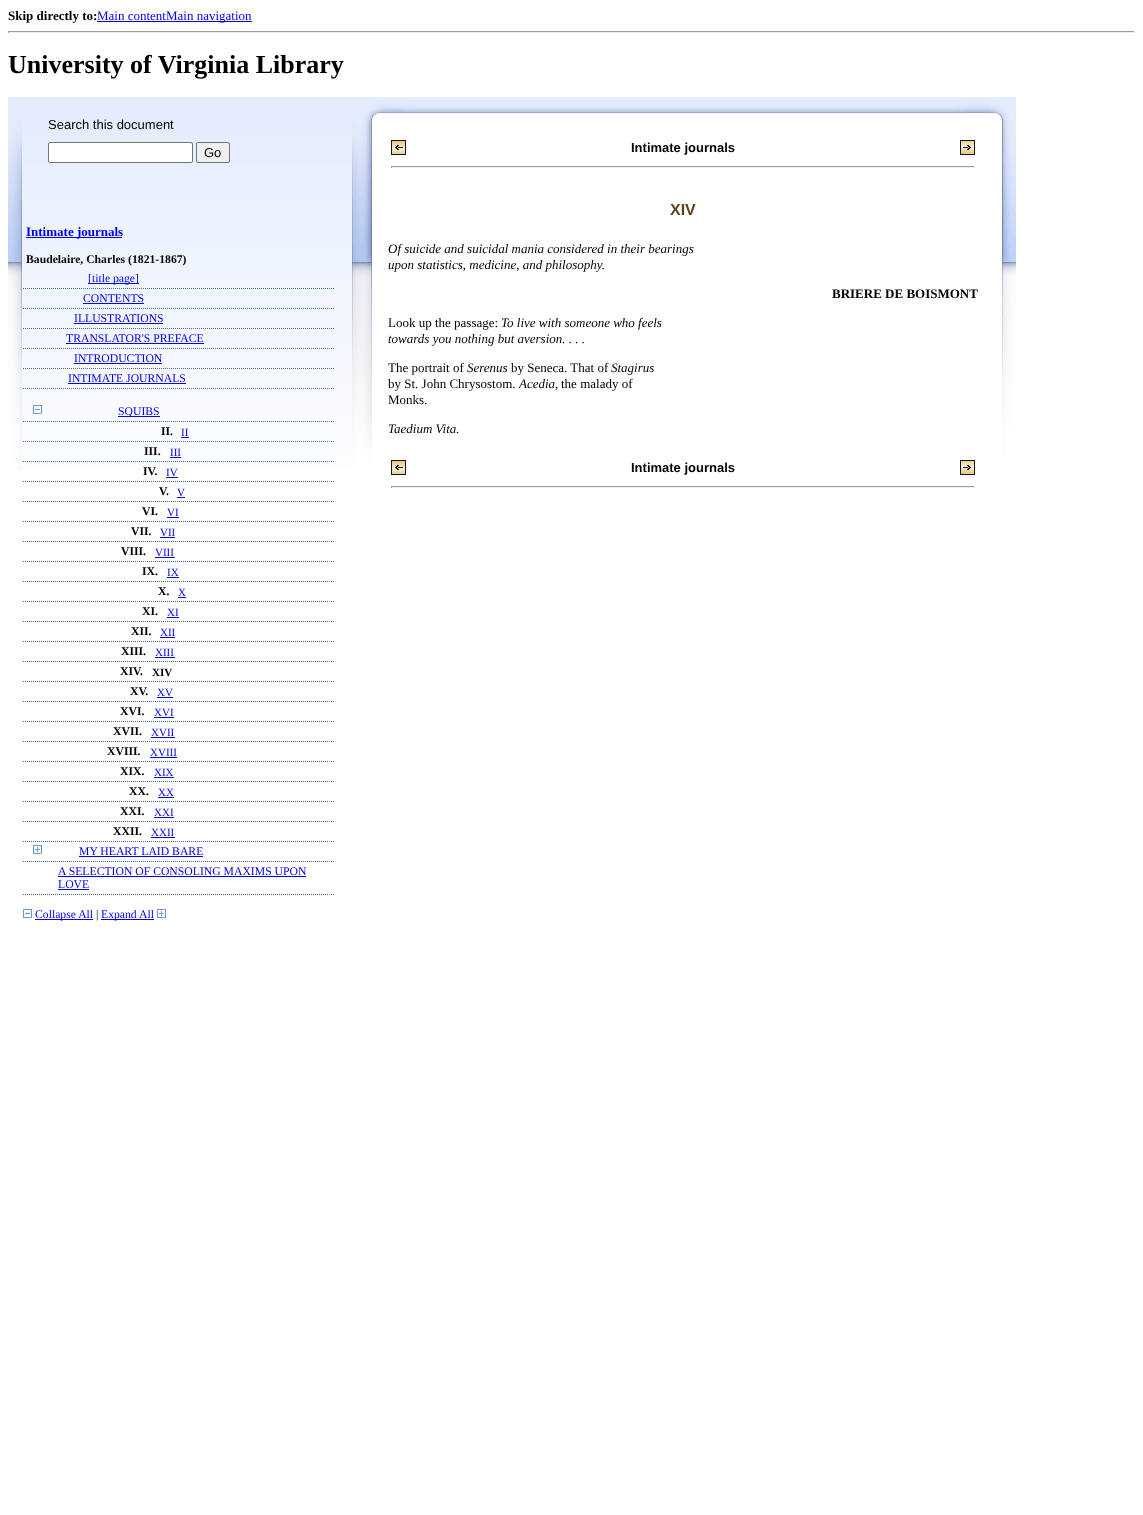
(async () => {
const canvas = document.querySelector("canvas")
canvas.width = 1143
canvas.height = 1515
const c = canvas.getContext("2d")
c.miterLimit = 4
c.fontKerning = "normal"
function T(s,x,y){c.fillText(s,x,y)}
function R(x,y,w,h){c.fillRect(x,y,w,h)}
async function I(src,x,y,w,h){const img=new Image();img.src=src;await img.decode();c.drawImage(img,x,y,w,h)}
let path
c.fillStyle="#fff"
R(0,0,1143,1515)
c.font="bold 13px Liberation Serif"
c.fillStyle="#000"
T("Skip directly to:",8,20)
c.fillStyle="#00e"
R(97,21,155,1)
c.font="13px Liberation Serif"
T("Main contentMain navigation",97,20)
c.fillStyle="#9f9f9f"
R(8,31,1127,1)
c.fillStyle="#eee"
R(1134,31,1,2)
R(8,32,1127,1)
c.fillStyle="#9f9f9f"
R(8,31,1,2)
c.font="bold 26px Liberation Serif"
c.fillStyle="#000"
T("University of Virginia Library",8,73)
await I("1.png",8,97,1008,373)
c.font="13px Liberation Sans"
T("Search this document",48,129)
c.fillStyle="#fff"
c.beginPath()
c.roundRect(48.5,142.5,144,20,1.5)
c.fill()
c.strokeStyle="#767676"
c.stroke()
c.fillStyle="#efefef"
c.beginPath()
c.roundRect(196.5,142.5,33,20,1.5)
c.fill()
c.stroke()
c.fillStyle="#000"
T("Go",204,157)
c.fillStyle="#00e"
R(26,237,96,1)
c.font="bold 13px Liberation Serif"
T("Intimate journals",26,236)
c.font="bold 11.7px Liberation Serif"
c.fillStyle="#000"
T("Baudelaire, Charles (1821-1867)",26,263)
path = new Path2D("M23 288.5h311")
c.strokeStyle="#3f6dad"
c.setLineDash([1,1])
c.stroke(path)
c.fillStyle="#00e"
R(88,283,51,1)
c.font="11.7px Liberation Serif"
T("[title page]",88,282)
path = new Path2D("M23 308.5h311")
c.stroke(path)
T("CONTENTS",83,302)
R(83,303,61,1)
path = new Path2D("M23 328.5h311")
c.stroke(path)
T("ILLUSTRATIONS",74,322)
R(74,323,89,1)
path = new Path2D("M23 348.5h311")
c.stroke(path)
T("TRANSLATOR'S PREFACE",66,342)
R(66,343,138,1)
path = new Path2D("M23 368.5h311")
c.stroke(path)
T("INTRODUCTION",74,362)
R(74,363,88,1)
path = new Path2D("M23 388.5h311")
c.stroke(path)
T("INTIMATE JOURNALS",68,382)
R(68,383,118,1)
path = new Path2D("M23 421.5h311")
c.stroke(path)
await I("2.png",33,405,9,9)
R(118,416,42,1)
T("SQUIBS",118,415)
path = new Path2D("M23 441.5h311")
c.stroke(path)
c.font="bold 11.7px Liberation Serif"
c.fillStyle="#000"
T("II.",161,435)
c.font="11px Liberation Serif"
c.fillStyle="#00e"
T("II",181,436)
R(181,437,8,1)
path = new Path2D("M23 461.5h311")
c.stroke(path)
c.font="bold 11.7px Liberation Serif"
c.fillStyle="#000"
T("III.",144,455)
c.font="11px Liberation Serif"
c.fillStyle="#00e"
T("III",170,456)
R(170,457,11,1)
path = new Path2D("M23 481.5h311")
c.stroke(path)
c.font="bold 11.7px Liberation Serif"
c.fillStyle="#000"
T("IV.",143,475)
c.font="11px Liberation Serif"
c.fillStyle="#00e"
T("IV",166,476)
R(166,477,12,1)
path = new Path2D("M23 501.5h311")
c.stroke(path)
c.font="bold 11.7px Liberation Serif"
c.fillStyle="#000"
T("V.",159,495)
c.font="11px Liberation Serif"
c.fillStyle="#00e"
T("V",177,496)
R(177,497,8,1)
path = new Path2D("M23 521.5h311")
c.stroke(path)
c.font="bold 11.7px Liberation Serif"
c.fillStyle="#000"
T("VI.",142,515)
c.font="11px Liberation Serif"
c.fillStyle="#00e"
T("VI",167,516)
R(167,517,12,1)
path = new Path2D("M23 541.5h311")
c.stroke(path)
c.font="bold 11.7px Liberation Serif"
c.fillStyle="#000"
T("VII.",131,535)
c.font="11px Liberation Serif"
c.fillStyle="#00e"
T("VII",160,536)
R(160,537,15,1)
path = new Path2D("M23 561.5h311")
c.stroke(path)
c.font="bold 11.7px Liberation Serif"
c.fillStyle="#000"
T("VIII.",121,555)
c.font="11px Liberation Serif"
c.fillStyle="#00e"
T("VIII",155,556)
R(155,557,20,1)
path = new Path2D("M23 581.5h311")
c.stroke(path)
c.font="bold 11.7px Liberation Serif"
c.fillStyle="#000"
T("IX.",142,575)
c.font="11px Liberation Serif"
c.fillStyle="#00e"
T("IX",167,576)
R(167,577,12,1)
path = new Path2D("M23 601.5h311")
c.stroke(path)
c.font="bold 11.7px Liberation Serif"
c.fillStyle="#000"
T("X.",158,595)
c.font="11px Liberation Serif"
c.fillStyle="#00e"
T("X",178,596)
R(178,597,8,1)
path = new Path2D("M23 621.5h311")
c.stroke(path)
c.font="bold 11.7px Liberation Serif"
c.fillStyle="#000"
T("XI.",142,615)
c.font="11px Liberation Serif"
c.fillStyle="#00e"
T("XI",167,616)
R(167,617,12,1)
path = new Path2D("M23 641.5h311")
c.stroke(path)
c.font="bold 11.7px Liberation Serif"
c.fillStyle="#000"
T("XII.",131,635)
c.font="11px Liberation Serif"
c.fillStyle="#00e"
T("XII",160,636)
R(160,637,15,1)
path = new Path2D("M23 661.5h311")
c.stroke(path)
c.font="bold 11.7px Liberation Serif"
c.fillStyle="#000"
T("XIII.",121,655)
c.font="11px Liberation Serif"
c.fillStyle="#00e"
T("XIII",155,656)
R(155,657,20,1)
path = new Path2D("M23 681.5h311")
c.stroke(path)
c.font="bold 11.7px Liberation Serif"
c.fillStyle="#000"
T("XIV.",120,675)
c.font="bold 11px Liberation Serif"
T("XIV",152,676)
path = new Path2D("M23 701.5h311")
c.stroke(path)
c.font="bold 11.7px Liberation Serif"
T("XV.",130,695)
c.font="11px Liberation Serif"
c.fillStyle="#00e"
T("XV",157,696)
R(157,697,16,1)
path = new Path2D("M23 721.5h311")
c.stroke(path)
c.font="bold 11.7px Liberation Serif"
c.fillStyle="#000"
T("XVI.",120,715)
c.font="11px Liberation Serif"
c.fillStyle="#00e"
T("XVI",154,716)
R(154,717,20,1)
path = new Path2D("M23 741.5h311")
c.stroke(path)
c.font="bold 11.7px Liberation Serif"
c.fillStyle="#000"
T("XVII.",113,735)
c.font="11px Liberation Serif"
c.fillStyle="#00e"
T("XVII",151,736)
R(151,737,24,1)
path = new Path2D("M23 761.5h311")
c.stroke(path)
c.font="bold 11.7px Liberation Serif"
c.fillStyle="#000"
T("XVIII.",107,755)
c.font="11px Liberation Serif"
c.fillStyle="#00e"
T("XVIII",150,756)
R(150,757,27,1)
path = new Path2D("M23 781.5h311")
c.stroke(path)
c.font="bold 11.7px Liberation Serif"
c.fillStyle="#000"
T("XIX.",120,775)
c.font="11px Liberation Serif"
c.fillStyle="#00e"
T("XIX",154,776)
R(154,777,20,1)
path = new Path2D("M23 801.5h311")
c.stroke(path)
c.font="bold 11.7px Liberation Serif"
c.fillStyle="#000"
T("XX.",129,795)
c.font="11px Liberation Serif"
c.fillStyle="#00e"
T("XX",158,796)
R(158,797,16,1)
path = new Path2D("M23 821.5h311")
c.stroke(path)
c.font="bold 11.7px Liberation Serif"
c.fillStyle="#000"
T("XXI.",120,815)
c.font="11px Liberation Serif"
c.fillStyle="#00e"
T("XXI",154,816)
R(154,817,20,1)
path = new Path2D("M23 841.5h311")
c.stroke(path)
c.font="bold 11.7px Liberation Serif"
c.fillStyle="#000"
T("XXII.",113,835)
c.font="11px Liberation Serif"
c.fillStyle="#00e"
T("XXII",151,836)
R(151,837,24,1)
path = new Path2D("M23 861.5h311")
c.stroke(path)
await I("3.png",33,845,9,9)
c.font="11.7px Liberation Serif"
T("MY HEART LAID BARE",79,855)
R(79,856,124,1)
path = new Path2D("M23 894.5h311")
c.stroke(path)
T("A SELECTION OF CONSOLING MAXIMS UPON",58,875)
R(58,876,248,1)
T("LOVE",58,888)
R(58,889,31,1)
await I("4.png",23,909,9,9)
R(35,919,58,1)
T("Collapse All",35,918)
c.fillStyle="#000"
T("|",96,918)
c.fillStyle="#00e"
R(101,919,53,1)
T("Expand All",101,918)
await I("3.png",157,909,9,9)
await I("5.png",391,140,15,15)
c.font="bold 13px Liberation Sans"
c.fillStyle="#000"
T("Intimate journals",631,152)
await I("6.png",960,140,15,15)
c.fillStyle="#9f9f9f"
R(391,166,584,1)
c.fillStyle="#eee"
R(974,166,1,2)
R(391,167,584,1)
c.fillStyle="#9f9f9f"
R(391,166,1,2)
c.font="bold 16px Liberation Sans"
c.fillStyle="#5b4418"
T("XIV",670,215)
c.font="italic 13px Liberation Serif"
c.fillStyle="#000"
T("Of suicide and suicidal mania considered in their bearings",388,253)
T("upon statistics, medicine, and philosophy.",388,269)
c.font="bold 13px Liberation Serif"
T("BRIERE DE BOISMONT",832,298)
c.font="13px Liberation Serif"
T("Look up the passage:",388,327)
c.font="italic 13px Liberation Serif"
T("To live with someone who feels",501,327)
T("towards you nothing but aversion. . . .",388,343)
c.font="13px Liberation Serif"
T("The portrait of",388,372)
c.font="italic 13px Liberation Serif"
T("Serenus",467,372)
c.font="13px Liberation Serif"
T("by Seneca. That of",511,372)
c.font="italic 13px Liberation Serif"
T("Stagirus",611,372)
c.font="13px Liberation Serif"
T("by St. John Chrysostom.",388,388)
c.font="italic 13px Liberation Serif"
T("Acedia,",519,388)
c.font="13px Liberation Serif"
T("the malady of",561,388)
T("Monks.",388,404)
c.font="italic 13px Liberation Serif"
T("Taedium Vita.",388,433)
await I("5.png",391,460,15,15)
c.font="bold 13px Liberation Sans"
T("Intimate journals",631,472)
await I("6.png",960,460,15,15)
c.fillStyle="#9f9f9f"
R(391,486,584,1)
c.fillStyle="#eee"
R(974,486,1,2)
R(391,487,584,1)
c.fillStyle="#9f9f9f"
R(391,486,1,2)
})()
